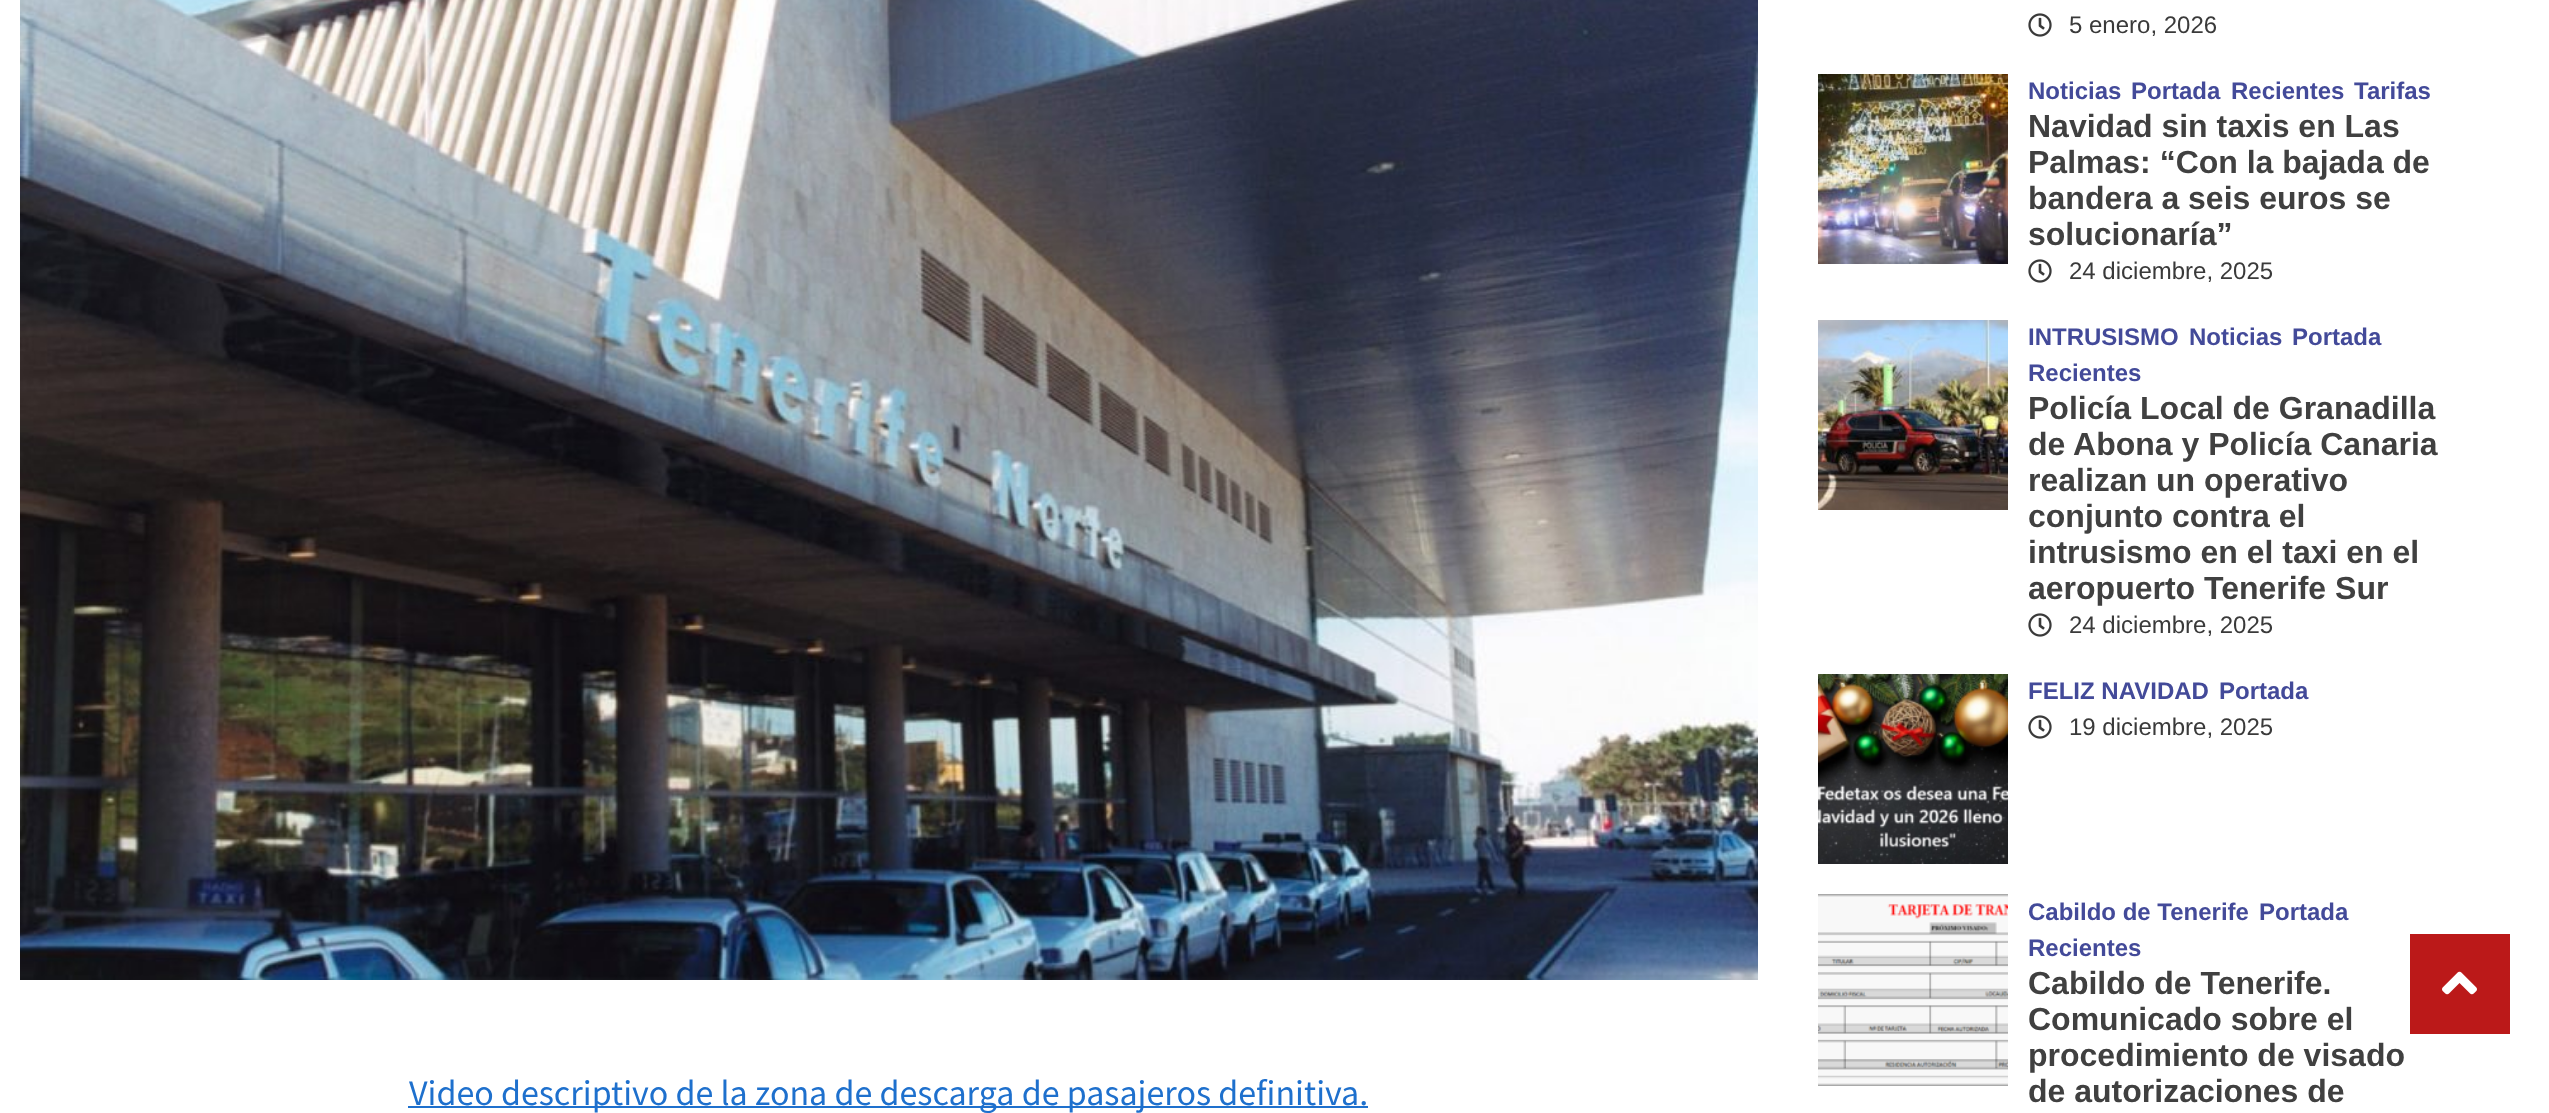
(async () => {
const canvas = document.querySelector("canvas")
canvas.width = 2549
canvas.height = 1113
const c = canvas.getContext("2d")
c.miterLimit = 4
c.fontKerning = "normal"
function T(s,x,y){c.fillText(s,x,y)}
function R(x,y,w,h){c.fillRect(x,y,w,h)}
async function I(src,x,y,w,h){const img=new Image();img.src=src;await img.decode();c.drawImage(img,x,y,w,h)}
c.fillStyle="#fff"
R(0,0,2549,1113)
await I("1.png",20,0,1738,980)
c.fillStyle="#1e70cd"
R(408,1106,960,2)
c.font="36px Source Sans Pro"
T("Video descriptivo de la zona de descarga de pasajeros definitiva.",409,1105)
await I("2.png",2028,13,24,24)
c.font="24px Liberation Sans"
c.fillStyle="#3a3a3a"
T("5 enero, 2026",2069,33)
await I("3.png",1818,74,190,190)
c.font="bold 24px Liberation Sans"
c.fillStyle="#434a99"
T("Noticias",2028,99)
T("Portada",2131,99)
T("Recientes",2231,99)
T("Tarifas",2354,99)
c.font="bold 32px Liberation Sans"
c.fillStyle="#404040"
T("Navidad sin taxis en Las",2028,137)
T("Palmas: “Con la bajada de",2028,173)
T("bandera a seis euros se",2028,209)
T("solucionaría”",2028,245)
await I("2.png",2028,259,24,24)
c.font="24px Liberation Sans"
c.fillStyle="#3a3a3a"
T("24 diciembre, 2025",2069,279)
await I("4.png",1818,320,190,190)
c.font="bold 24px Liberation Sans"
c.fillStyle="#434a99"
T("INTRUSISMO",2028,345)
T("Noticias",2189,345)
T("Portada",2292,345)
T("Recientes",2028,381)
c.font="bold 32px Liberation Sans"
c.fillStyle="#404040"
T("Policía Local de Granadilla",2028,419)
T("de Abona y Policía Canaria",2028,455)
T("realizan un operativo",2028,491)
T("conjunto contra el",2028,527)
T("intrusismo en el taxi en el",2028,563)
T("aeropuerto Tenerife Sur",2028,599)
await I("2.png",2028,613,24,24)
c.font="24px Liberation Sans"
c.fillStyle="#3a3a3a"
T("24 diciembre, 2025",2069,633)
await I("5.png",1818,674,190,190)
c.font="bold 24px Liberation Sans"
c.fillStyle="#434a99"
T("FELIZ NAVIDAD",2028,699)
T("Portada",2219,699)
await I("2.png",2028,715,24,24)
c.font="24px Liberation Sans"
c.fillStyle="#3a3a3a"
T("19 diciembre, 2025",2069,735)
await I("6.png",1818,894,190,192)
c.font="bold 24px Liberation Sans"
c.fillStyle="#434a99"
T("Cabildo de Tenerife",2028,920)
T("Portada",2259,920)
T("Recientes",2028,956)
c.font="bold 32px Liberation Sans"
c.fillStyle="#404040"
T("Cabildo de Tenerife.",2028,994)
T("Comunicado sobre el",2028,1030)
T("procedimiento de visado",2028,1066)
T("de autorizaciones de",2028,1102)
c.fillStyle="#bb1919"
R(2410,934,100,100)
await I("7.png",2442,971,35,24)
})()
